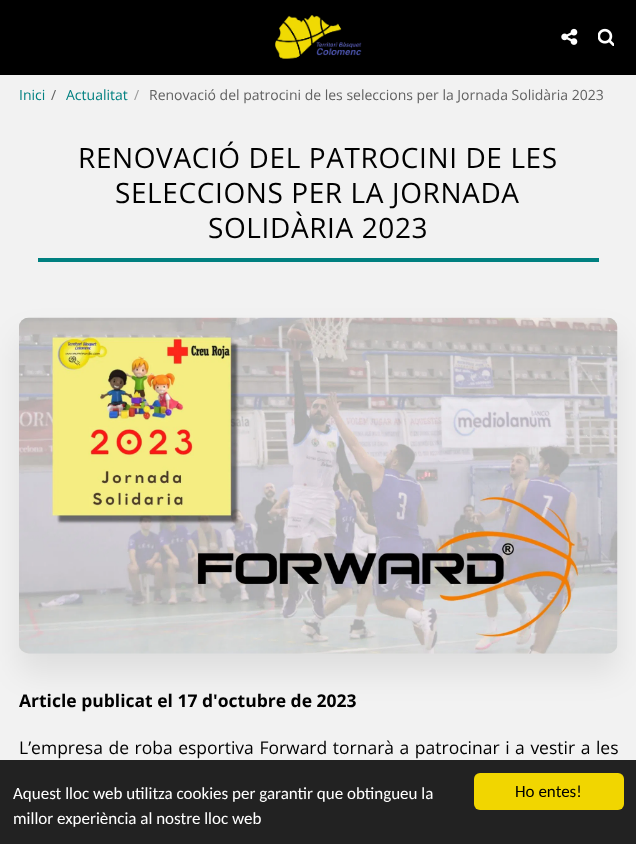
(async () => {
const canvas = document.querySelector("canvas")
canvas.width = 636
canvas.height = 844
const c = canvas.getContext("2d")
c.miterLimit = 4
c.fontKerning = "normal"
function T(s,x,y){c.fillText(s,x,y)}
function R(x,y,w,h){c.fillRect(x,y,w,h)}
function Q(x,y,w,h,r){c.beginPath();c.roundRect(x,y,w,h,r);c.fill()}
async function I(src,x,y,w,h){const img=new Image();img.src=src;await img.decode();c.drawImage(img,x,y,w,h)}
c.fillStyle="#f2f2f2"
R(0,0,636,844)
c.fillStyle="#000"
R(0,0,636,75)
await I("1.png",275,15,87,44)
await I("2.png",561,28,17,17)
await I("3.png",598,28,16,18)
c.font="14px Open Sans"
c.fillStyle="#008080"
T("Inici",19,100)
c.fillStyle="#616161"
T("/",51,100)
c.fillStyle="#008080"
T("Actualitat",66,100)
c.fillStyle="#9b9b9b"
T("/",134,100)
c.fillStyle="#616161"
T("Renovació del patrocini de les seleccions per la Jornada Solidària 2023",149,100)
c.fillStyle="#008080"
R(38,258,561,4)
c.letterSpacing="0.6px"
c.font="28px Open Sans"
c.fillStyle="#000"
T("RENOVACIÓ DEL PATROCINI DE LES",78,168)
T("SELECCIONS PER LA JORNADA",115,203)
T("SOLIDÀRIA 2023",208,238)
c.fillStyle="#00000014"
c.filter="blur(15.5px)"
c.beginPath()
c.roundRect(19,336,599,337,10)
c.fill()
c.filter="none"
await I("4.png",19,317,599,337)
c.letterSpacing="0px"
c.font="bold 17.5px Open Sans"
c.fillStyle="#000"
T("Article publicat el 17 d'octubre de 2023",19,707)
c.wordSpacing="1px"
c.font="17.5px Open Sans"
T("L’empresa de roba esportiva Forward tornarà a patrocinar i a vestir a les",19,754)
c.fillStyle="#222"
R(0,760,636,84)
c.wordSpacing="0px"
c.font="17px Carlito"
c.fillStyle="#fff"
T("Aquest lloc web utilitza cookies per garantir que obtingueu la",13,799)
T("millor experiència al nostre lloc web",13,824)
c.fillStyle="#f1d600"
Q(474,773,150,37,6)
c.fillStyle="#000"
T("Ho entes!",515,797)
})()
